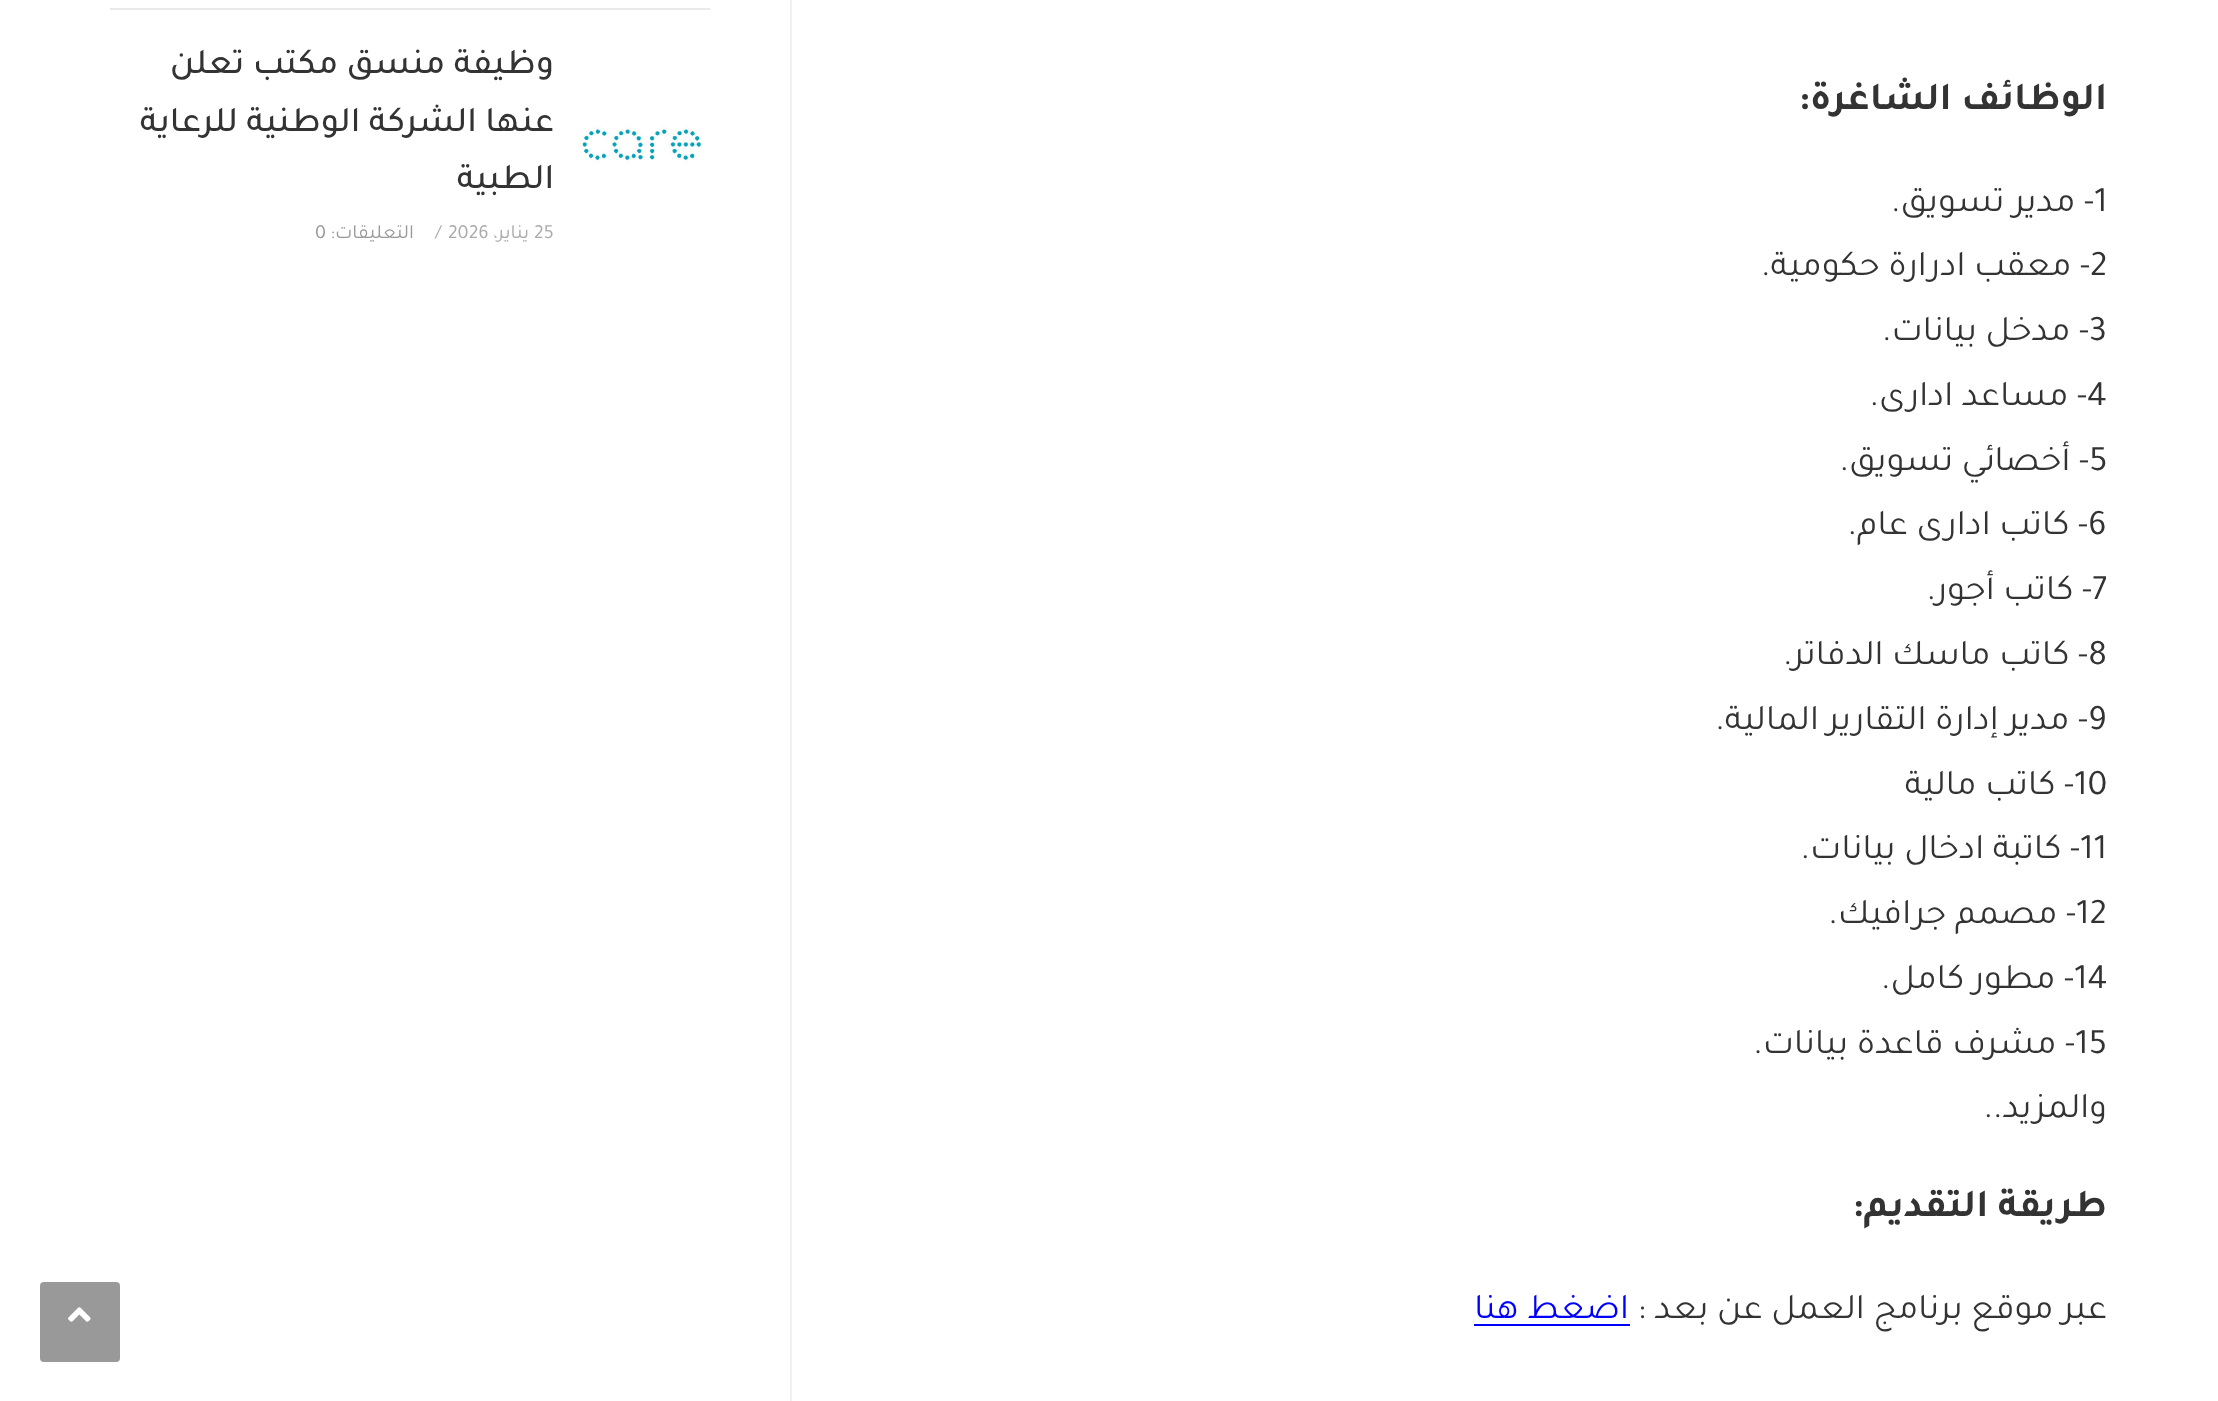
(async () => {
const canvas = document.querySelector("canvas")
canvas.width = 2218
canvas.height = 1401
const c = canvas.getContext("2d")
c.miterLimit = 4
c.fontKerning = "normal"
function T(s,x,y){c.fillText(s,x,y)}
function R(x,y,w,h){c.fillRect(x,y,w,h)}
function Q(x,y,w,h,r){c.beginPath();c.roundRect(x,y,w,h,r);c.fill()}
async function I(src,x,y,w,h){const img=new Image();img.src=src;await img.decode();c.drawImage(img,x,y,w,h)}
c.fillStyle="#fff"
R(0,0,2218,1401)
c.fillStyle="#f1f1f1"
R(790,0,2,1401)
c.direction="rtl"
c.font="bold 39.5px Tajawal"
c.fillStyle="#333"
T("الوظائف الشاغرة:",2107,109)
c.direction="ltr"
c.font="36px Tajawal"
T("1",2094,211)
c.direction="rtl"
T("- مدير تسويق.",2094,211)
c.direction="ltr"
T("2",2090,275)
c.direction="rtl"
T("- معقب ادرارة حكومية.",2090,275)
c.direction="ltr"
T("3",2089,340)
c.direction="rtl"
T("- مدخل بيانات.",2089,340)
c.direction="ltr"
T("4",2087,405)
c.direction="rtl"
T("- مساعد ادارى.",2087,405)
c.direction="ltr"
T("5",2089,470)
c.direction="rtl"
T("- أخصائي تسويق.",2089,470)
c.direction="ltr"
T("6",2088,534)
c.direction="rtl"
T("- كاتب ادارى عام.",2088,534)
c.direction="ltr"
T("7",2092,599)
c.direction="rtl"
T("- كاتب أجور.",2092,599)
c.direction="ltr"
T("8",2088,664)
c.direction="rtl"
T("- كاتب ماسك الدفاتر.",2088,664)
c.direction="ltr"
T("9",2088,729)
c.direction="rtl"
T("- مدير إدارة التقارير المالية.",2088,729)
c.direction="ltr"
T("10",2074,794)
c.direction="rtl"
T("- كاتب مالية",2074,794)
c.direction="ltr"
T("11",2080,858)
c.direction="rtl"
T("- كاتبة ادخال بيانات.",2080,858)
c.direction="ltr"
T("12",2076,923)
c.direction="rtl"
T("- مصمم جرافيك.",2076,923)
c.direction="ltr"
T("14",2074,988)
c.direction="rtl"
T("- مطور كامل.",2074,988)
c.direction="ltr"
T("15",2075,1053)
c.direction="rtl"
T("- مشرف قاعدة بيانات.",2075,1053)
T("والمزيد..",2107,1117)
c.font="bold 39.5px Tajawal"
T("طريقة التقديم:",2107,1216)
c.font="36px Tajawal"
T("عبر موقع برنامج العمل عن بعد :",2107,1318)
c.fillStyle="#00f"
T("اضغط هنا",1629,1318)
R(1474,1324,156,2)
c.fillStyle="#e9e9e9"
R(110,8,600,2)
await I("1.png",579,125,124,39)
c.font="500 36px Tajawal"
c.fillStyle="#333"
T("وظيفة منسق مكتب تعلن",554,73)
T("عنها الشركة الوطنية للرعاية",554,131)
T("الطبية",554,188)
c.direction="ltr"
c.font="20px Tajawal"
c.fillStyle="#aaa"
T("25",534,238)
c.direction="rtl"
T("يناير،",529,238)
c.direction="ltr"
T("2026",448,238)
T("/",435,238)
c.direction="rtl"
c.fillStyle="#999"
T("التعليقات:",414,238)
c.direction="ltr"
T("0",315,238)
Q(40,1282,80,80,4)
await I("2.png",68,1307,23,15)
})()
